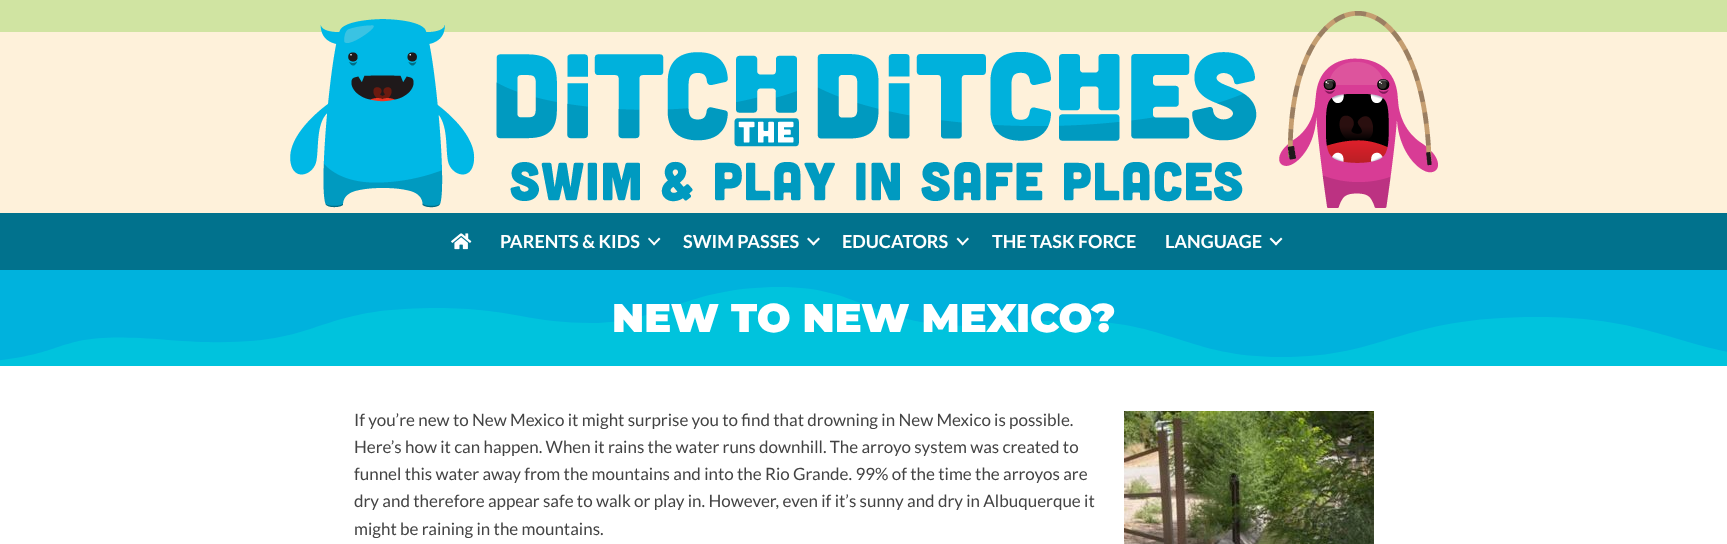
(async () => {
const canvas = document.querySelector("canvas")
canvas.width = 1727
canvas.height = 544
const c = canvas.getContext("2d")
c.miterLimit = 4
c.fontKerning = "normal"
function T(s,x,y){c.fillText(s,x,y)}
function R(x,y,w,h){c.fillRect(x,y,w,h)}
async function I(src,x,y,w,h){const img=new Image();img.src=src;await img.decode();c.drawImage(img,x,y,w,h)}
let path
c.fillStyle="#d0e4a2"
R(0,0,1727,544)
c.fillStyle="#fef1da"
R(0,32,1727,181)
await I("1.png",290,11,1148,197)
c.fillStyle="#01728d"
R(0,213,1727,57)
await I("2.png",451,233,21,17)
c.font="bold 18px Lato"
c.fillStyle="#fff"
T("PARENTS & KIDS",500,248)
path = new Path2D("M659 237.5l1.5 1.5l-6.5 6.5l-1-1.5z")
c.fill(path)
path = new Path2D("M649 237.5l6.5 6.5l-1.5 1.5l-6-6.5z")
c.fill(path)
T("SWIM PASSES",683,248)
path = new Path2D("M818.5 237.5l1.5 1.5l-6.5 6.5l-1.5-1.5z")
c.fill(path)
path = new Path2D("M808.5 237.5l6.5 6.5l-1.5 1.5l-6.5-6.5z")
c.fill(path)
T("EDUCATORS",842,248)
path = new Path2D("M967.5 237.5l1.5 1.5l-6.5 6.5l-1-1.5z")
c.fill(path)
path = new Path2D("M958 237.5l6 6.5l-1.5 1.5l-6-6.5z")
c.fill(path)
T("THE TASK FORCE",992,248)
T("LANGUAGE",1165,248)
path = new Path2D("M1281 237.5l1.5 1.5l-6.5 6.5l-1.5-1.5z")
c.fill(path)
path = new Path2D("M1271 237.5l6.5 6.5l-1.5 1.5l-6.5-6.5z")
c.fill(path)
c.fillStyle="#00b2dd"
R(0,270,1727,91)
c.fillStyle="#00c3dd"
path = new Path2D("M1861 366c-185-4-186-49-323-49c-142 0-149 40-257 40c-47 0-75-9-103-18c-37-12-75-24-159-16c-85 9-120-5-153-18c-24-9-46-18-86-18c-95 0-118 36-188 36c-29 0-50-3-71-7c-29-5-60-10-116-7c-39 2-61 9-83 16c-32 11-64 22-154 15c-71-6-88 0-110 7c-23 8-52 17-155 19z")
c.fill(path)
c.font="100 40px Montserrat"
c.fillStyle="#fff"
T("NEW TO NEW MEXICO?",612,332)
R(0,366,1727,178)
c.font="17px Lato"
c.fillStyle="#444"
T("If you’re new to New Mexico it might surprise you to find that drowning in New Mexico is possible.",354,426)
await I("3.png",1124,411,250,133)
T("Here’s how it can happen. When it rains the water runs downhill. The arroyo system was created to",354,453)
T("funnel this water away from the mountains and into the Rio Grande. 99% of the time the arroyos are",354,480)
T("dry and therefore appear safe to walk or play in. However, even if it’s sunny and dry in Albuquerque it",354,507)
T("might be raining in the mountains.",354,535)
})()
